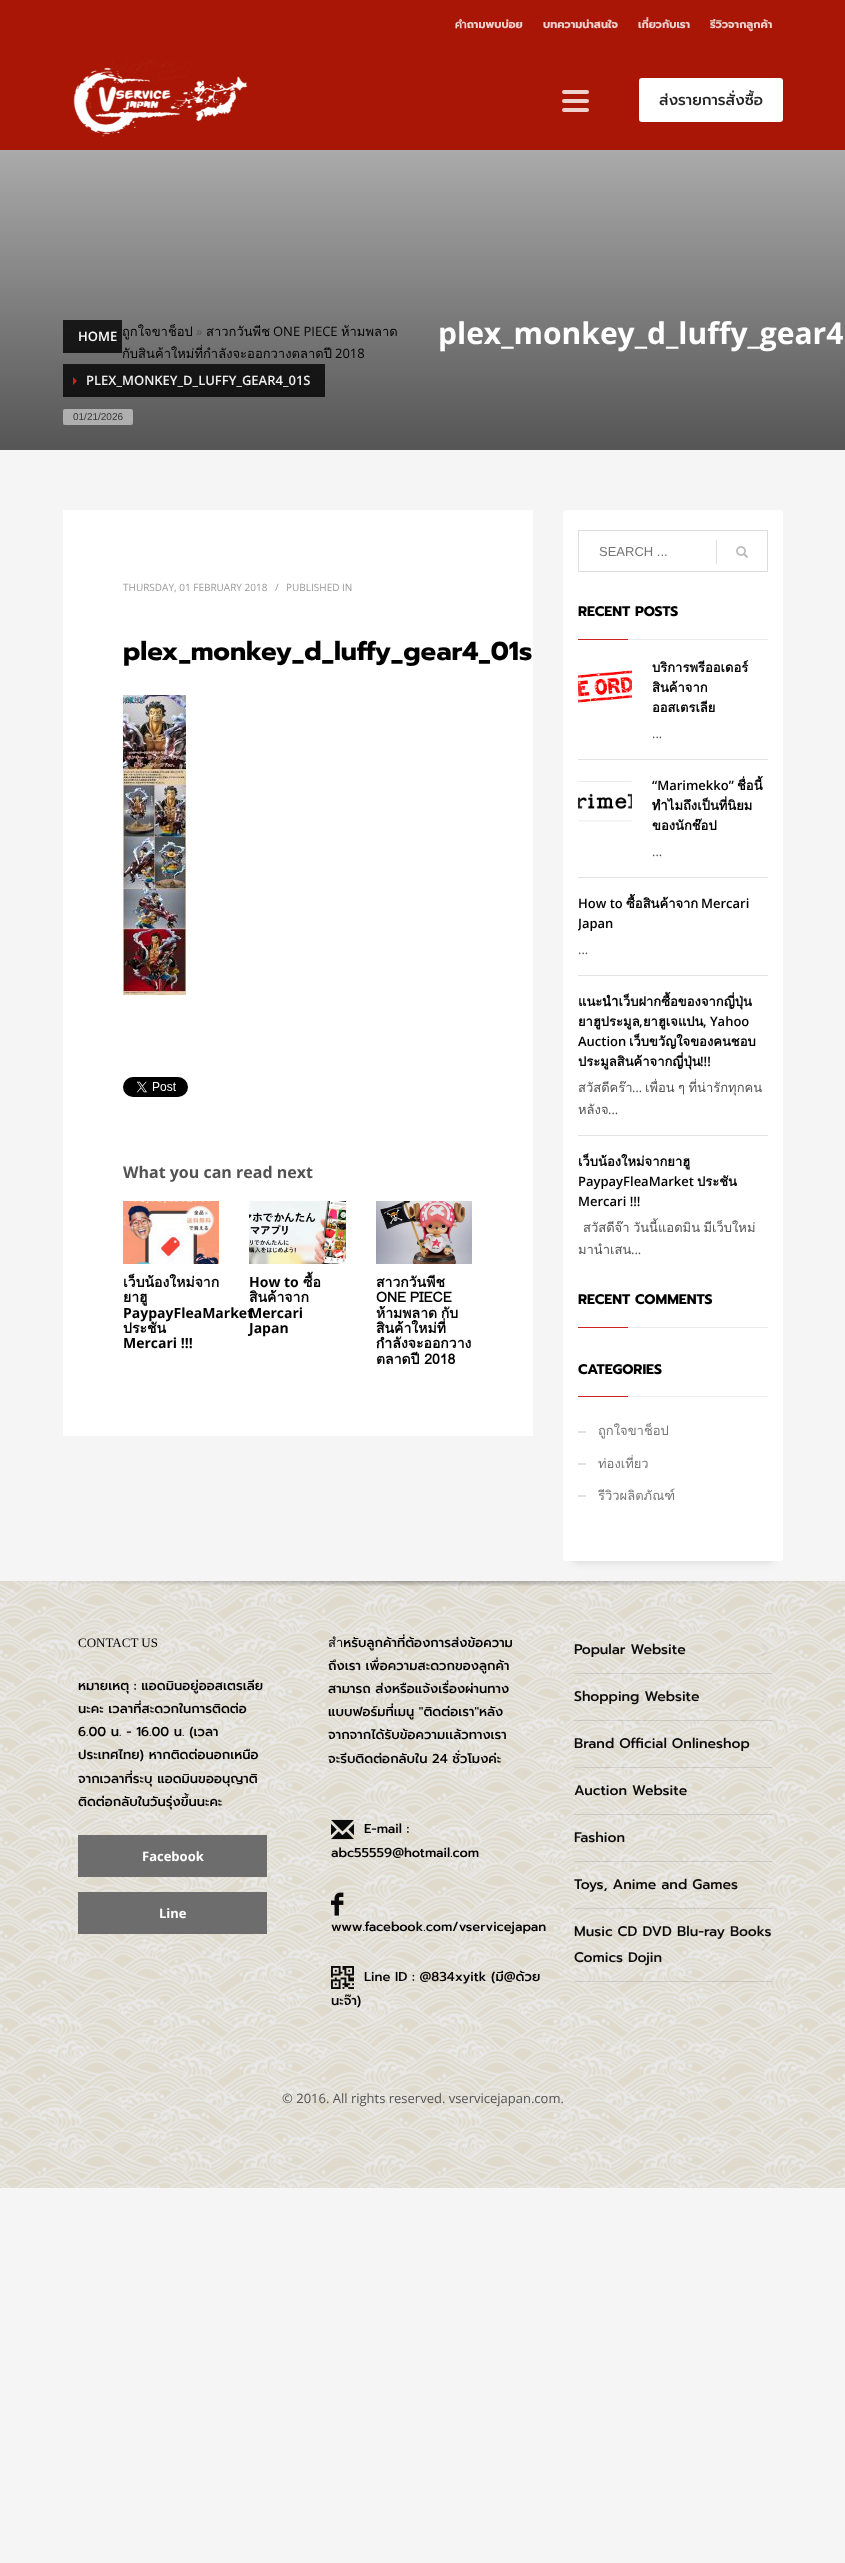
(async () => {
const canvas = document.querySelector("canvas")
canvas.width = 845
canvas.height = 2563
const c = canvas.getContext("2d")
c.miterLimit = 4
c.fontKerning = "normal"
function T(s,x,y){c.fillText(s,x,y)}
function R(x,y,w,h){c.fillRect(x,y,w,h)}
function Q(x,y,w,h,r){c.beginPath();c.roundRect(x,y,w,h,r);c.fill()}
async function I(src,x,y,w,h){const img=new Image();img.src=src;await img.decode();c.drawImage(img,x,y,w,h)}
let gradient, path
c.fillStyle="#f5f5f5"
R(0,0,845,2563)
c.fillStyle="#a91605"
R(0,0,845,150)
c.font="bold 11px Prompt"
c.fillStyle="#eed0cd"
T("คำถามพบบ่อย",455,28)
T("บทความน่าสนใจ",543,28)
T("เกี่ยวกับเรา",638,28)
T("รีวิวจากลูกค้า",710,28)
await I("1.png",73,60,175,77)
Q(562,90,27,4,2)
Q(562,99,27,4,2)
Q(562,108,27,4,2)
c.fillStyle="#fff"
Q(639,78,144,44,3)
c.font="500 15px Prompt"
c.fillStyle="#242424"
T("ส่งรายการสั่งซื้อ",659,105)
gradient = c.createLinearGradient(423,150,423,450)
gradient.addColorStop(0,"#aaa")
gradient.addColorStop(1,"#555")
c.fillStyle = gradient
R(0,150,845,300)
gradient = c.createLinearGradient(423,150,423,450)
gradient.addColorStop(0,"#222")
gradient.addColorStop(1,"#111")
c.fillStyle = gradient
R(63,364,262,33)
c.font="13px Loma"
c.fillStyle="#000"
T("ถูกใจขาช็อป",122,336)
T("กับสินค้าใหม่ที่กำลังจะออกวางตลาดปี",122,358)
c.fillStyle="#000000cc"
R(63,320,59,33)
c.font="600 13px Open Sans"
c.fillStyle="#fff"
T("HOME",78,341)
c.font="13px Open Sans"
c.fillStyle="#535353"
T("»",196,336)
c.font="13px Loma"
c.fillStyle="#000"
T("สาวกวันพีช",206,336)
c.font="13px Open Sans"
T("ONE PIECE",273,336)
c.font="13px Loma"
T("ห้ามพลาด",341,336)
c.font="13px Open Sans"
T("2018",335,358)
c.fillStyle="#cd2122"
path = new Path2D("M73 385v-8l4 4z")
c.fill(path)
c.font="600 13px Open Sans"
c.fillStyle="#eee"
T("PLEX_MONKEY_D_LUFFY_GEAR4_01S",86,385)
c.fillStyle="#ffffff80"
Q(63,409,70,16,2)
c.font="10px Liberation Sans"
c.fillStyle="#383838"
T("01/21/2026",73,420)
c.font="bold 30px Open Sans"
c.fillStyle="#fff"
T("plex_monkey_d_luffy_gear4",438,344)
R(63,510,470,926)
c.font="10px Open Sans"
c.fillStyle="#9a9a9a"
T("THURSDAY, 01 FEBRUARY 2018",123,591)
T("/",275,591)
T("PUBLISHED IN",286,591)
c.font="bold 26px Prompt"
c.fillStyle="#000"
T("plex_monkey_d_luffy_gear4_01s",123,660)
await I("2.png",123,695,63,300)
await I("3.png",123,1077,65,20)
c.font="bold 16px Open Sans"
c.fillStyle="#535353"
T("What you can read next",123,1178)
await I("4.png",123,1201,96,63)
c.font="bold 14px Loma"
c.fillStyle="#000"
T("เว็บน้องใหม่จาก",123,1287)
T("ยาฮู",123,1302)
c.font="bold 14px Open Sans"
T("PaypayFleaMarket",123,1318)
c.font="bold 14px Loma"
T("ประชัน",123,1333)
c.font="bold 14px Open Sans"
T("Mercari !!!",123,1348)
await I("5.png",249,1201,97,63)
T("How to",249,1287)
c.font="bold 14px Loma"
T("ซื้อ",303,1287)
T("สินค้าจาก",249,1302)
c.font="bold 14px Open Sans"
T("Mercari",249,1318)
T("Japan",249,1333)
await I("6.png",376,1201,96,63)
c.font="bold 14px Loma"
T("สาวกวันพีช",376,1287)
c.wordSpacing="-1px"
T("ONE PIECE",376,1302)
T("ห้ามพลาด กับ",376,1318)
c.wordSpacing="0px"
T("สินค้าใหม่ที่",376,1333)
T("กำลังจะออกวาง",376,1348)
T("ตลาดปี 2018",376,1364)
c.fillStyle="#00000026"
c.filter="blur(5px)"
c.beginPath()
c.rect(573,530,200,1031)
c.fill()
c.filter="none"
c.fillStyle="#fff"
Q(563,510,220,1051,3)
c.strokeStyle="#ddd"
c.strokeRect(578.5,530.5,189,41)
c.font="13px Liberation Sans"
c.fillStyle="#757575"
T("SEARCH ...",599,556)
c.fillStyle="#ddd"
R(716,540,1,24)
await I("7.png",736,546,12,12)
c.font="bold 14px Prompt"
c.fillStyle="#000"
T("RECENT POSTS",578,616)
c.fillStyle="#cd2122"
R(578,639,50,1)
c.fillStyle="#ececec"
R(628,639,140,1)
c.fillStyle="#e3e3e3"
R(578,759,190,1)
await I("8.png",578,670,54,33)
c.beginPath()
c.roundRect(579.5,663.5,51,46,1.5)
c.strokeStyle="#ffffff26"
c.lineWidth=3
c.stroke()
c.font="bold 13px Loma"
c.fillStyle="#000"
T("บริการพรีออเดอร์",652,672)
c.save()
c.beginPath()
c.rect(652,657,116,60)
c.clip()
T("สินค้าจาก",652,692)
c.restore()
T("ออสเตรเลีย",652,712)
c.font="13px Open Sans"
c.fillStyle="#535353"
T("...",652,738)
c.fillStyle="#e3e3e3"
R(578,877,190,1)
await I("9.png",578,781,54,41)
c.beginPath()
c.roundRect(579.5,781.5,51,39,1.5)
c.stroke()
c.font="600 13px Open Sans"
c.fillStyle="#000"
T("“Marimekko”",652,790)
c.font="bold 13px Loma"
T("ชื่อนี้",737,790)
c.save()
c.beginPath()
c.rect(652,775,116,60)
c.clip()
T("ทำไมถึงเป็นที่นิยม",652,810)
c.restore()
T("ของนักช๊อป",652,830)
c.font="13px Open Sans"
c.fillStyle="#535353"
T("...",652,856)
c.fillStyle="#e3e3e3"
R(578,975,190,1)
c.font="600 13px Open Sans"
c.fillStyle="#000"
T("How to",578,908)
c.font="bold 13px Loma"
T("ซื้อสินค้าจาก",626,908)
c.font="600 13px Open Sans"
T("Mercari",701,908)
c.save()
c.beginPath()
c.rect(578,893,190,82)
c.clip()
T("Japan",578,928)
c.restore()
c.font="13px Open Sans"
c.fillStyle="#535353"
T("...",578,954)
c.fillStyle="#e3e3e3"
R(578,1135,190,1)
c.font="bold 13px Loma"
c.fillStyle="#000"
T("แนะนำเว็บฝากซื้อของจากญี่ปุ่น",578,1006)
T("ยาฮูประมูล",578,1026)
c.font="600 13px Open Sans"
T(",",639,1026)
c.font="bold 13px Loma"
T("ยาฮูเจแปน",643,1026)
c.font="600 13px Open Sans"
T(", Yahoo",703,1026)
T("Auction",578,1046)
c.font="bold 13px Loma"
T("เว็บขวัญใจของคนชอบ",629,1046)
T("ประมูลสินค้าจากญี่ปุ่น",578,1066)
c.font="600 13px Open Sans"
T("!!!",700,1066)
c.font="13px Loma"
c.fillStyle="#535353"
T("สวัสดีคร๊า",578,1092)
c.font="13px Open Sans"
T("…",632,1092)
c.wordSpacing="-1px"
c.font="13px Loma"
T("เพื่อน ๆ ที่น่ารักทุกคน",645,1092)
c.wordSpacing="0px"
T("หลังจ",578,1114)
c.font="13px Open Sans"
T("...",608,1114)
c.save()
c.beginPath()
c.rect(578,1151,190,109)
c.clip()
c.font="bold 13px Loma"
c.fillStyle="#000"
T("เว็บน้องใหม่จากยาฮู",578,1166)
c.restore()
c.font="600 13px Open Sans"
c.fillStyle="#000"
T("PaypayFleaMarket",578,1186)
c.font="bold 13px Loma"
T("ประชัน",697,1186)
c.font="600 13px Open Sans"
T("Mercari !!!",578,1206)
c.wordSpacing="-1px"
c.font="13px Loma"
c.fillStyle="#535353"
T("สวัสดีจ๊า วันนี้แอดมิน มีเว็บใหม่",583,1232)
c.wordSpacing="0px"
T("มานำเสน",578,1254)
c.font="13px Open Sans"
T("...",631,1254)
c.font="bold 14px Prompt"
c.fillStyle="#000"
T("RECENT COMMENTS",578,1304)
c.fillStyle="#cd2122"
R(578,1327,50,1)
c.fillStyle="#ececec"
R(628,1327,140,1)
c.fillStyle="#000"
T("CATEGORIES",578,1374)
c.fillStyle="#cd2122"
R(578,1396,50,1)
c.fillStyle="#ececec"
R(628,1396,140,1)
c.fillStyle="#e1e1e1"
R(578,1431,8,2)
c.font="13px Loma"
c.fillStyle="#757575"
T("ถูกใจขาช็อป",598,1435)
c.fillStyle="#e1e1e1"
R(578,1463,8,2)
c.fillStyle="#757575"
T("ท่องเที่ยว",598,1468)
c.fillStyle="#e1e1e1"
R(578,1495,8,2)
c.fillStyle="#757575"
T("รีวิวผลิตภัณฑ์",598,1500)
await I("10.png",0,1581,845,607)
c.font="13px Liberation Serif"
c.fillStyle="#000"
T("CONTACT US",78,1647)
c.font="500 13px Prompt"
T("หมายเหตุ : แอดมินอยู่ออสเตรเลีย",78,1690)
T("นะคะ เวลาที่สะดวกในการติดต่อ",78,1713)
T("6.00 น. - 16.00 น. (เวลา",78,1736)
T("ประเทศไทย) หากติดต่อนอกเหนือ",78,1759)
T("จากเวลาที่ระบุ แอดมินขออนุญาติ",78,1783)
T("ติดต่อกลับในวันรุ่งขึ้นนะคะ",78,1806)
c.fillStyle="#6d6d6d"
R(78,1835,189,42)
c.font="bold 13px Open Sans"
c.fillStyle="#fff"
T("Facebook",142,1861)
c.fillStyle="#6d6d6d"
R(78,1892,189,42)
c.fillStyle="#fff"
T("Line",159,1918)
c.font="500 13px Prompt"
c.fillStyle="#000"
T("สำหรับลูกค้าที่ต้องการส่งข้อความ",328,1647)
T("ถึงเรา เพื่อความสะดวกของลูกค้า",328,1670)
T("สามารถ ส่งหรือแจ้งเรื่องผ่านทาง",328,1693)
T("แบบฟอร์มที่เมนู \"ติดต่อเรา\"หลัง",328,1716)
T("จากจากได้รับข้อความเเล้วทางเรา",328,1739)
T("จะรีบติดต่อกลับใน 24 ชั่วโมงค่ะ",328,1763)
await I("11.png",331,1819,23,21)
T("E-mail :",364,1833)
T("abc55559@hotmail.com",331,1857)
await I("12.png",331,1892,13,24)
T("www.facebook.com/vservicejapan",331,1931)
await I("13.png",331,1966,23,23)
T("Line ID : @834xyitk (มี@ด้วย",364,1981)
T("นะจ๊า)",331,2005)
c.fillStyle="#0000001a"
R(574,1673,198,1)
c.font="500 14px Prompt"
c.fillStyle="#0a0a0a"
T("Popular Website",574,1654)
await I("14.png",761,1644,7,12)
c.fillStyle="#0000001a"
R(574,1720,198,1)
c.fillStyle="#0a0a0a"
T("Shopping Website",574,1701)
await I("15.png",761,1691,7,12)
c.fillStyle="#0000001a"
R(574,1767,198,1)
c.fillStyle="#0a0a0a"
T("Brand Official Onlineshop",574,1748)
await I("16.png",761,1738,7,12)
c.fillStyle="#0000001a"
R(574,1814,198,1)
c.fillStyle="#0a0a0a"
T("Auction Website",574,1795)
await I("17.png",761,1785,7,12)
c.fillStyle="#0000001a"
R(574,1861,198,1)
c.fillStyle="#0a0a0a"
T("Fashion",574,1842)
await I("18.png",761,1832,7,12)
c.fillStyle="#0000001a"
R(574,1908,198,1)
c.fillStyle="#0a0a0a"
T("Toys, Anime and Games",574,1889)
await I("19.png",761,1879,7,12)
c.fillStyle="#0000001a"
R(574,1981,198,1)
c.fillStyle="#0a0a0a"
T("Music CD DVD Blu-ray Books",574,1936)
await I("20.png",761,1939,7,12)
T("Comics Dojin",574,1962)
c.font="13px Open Sans"
c.fillStyle="#535353"
T("© 2016. All rights reserved. vservicejapan.com.",282,2103)
})()
